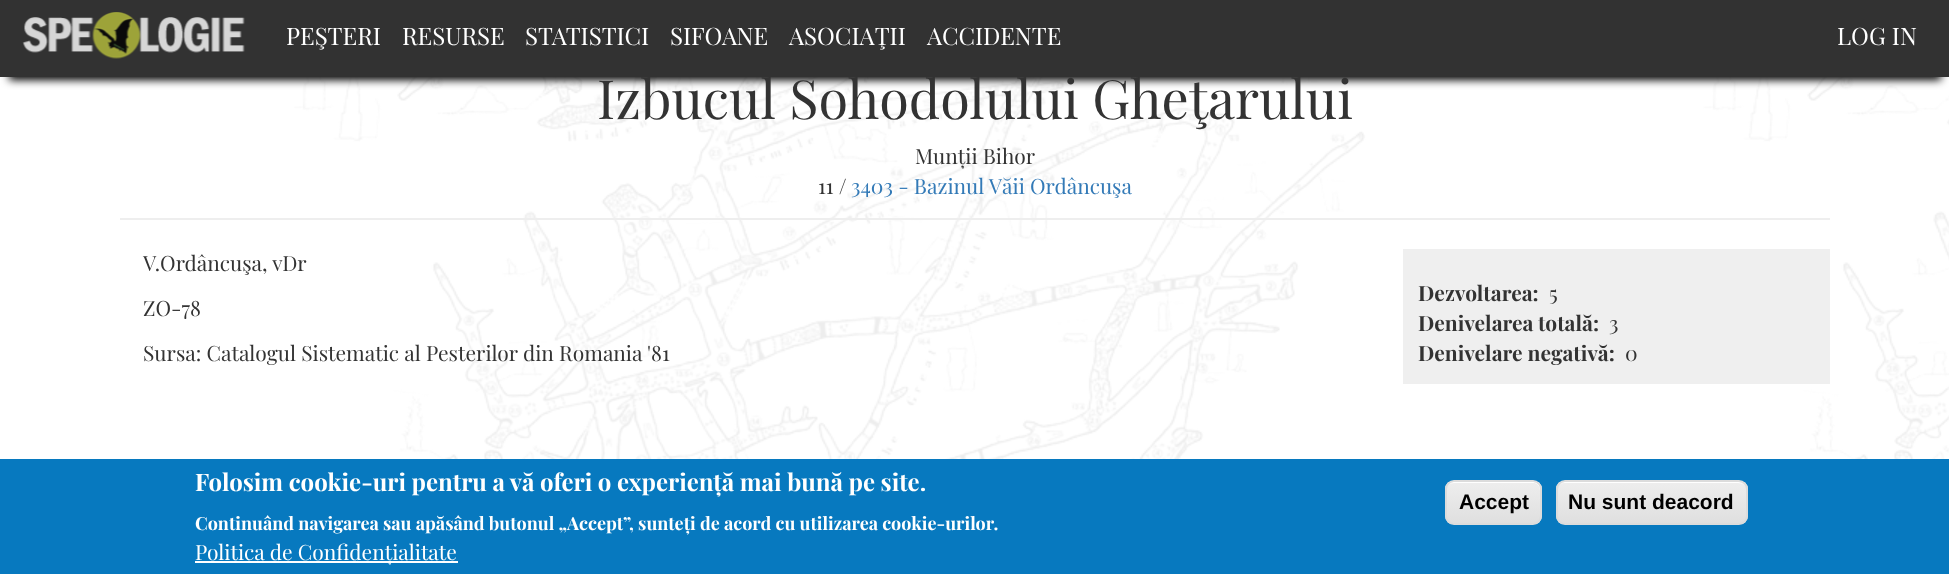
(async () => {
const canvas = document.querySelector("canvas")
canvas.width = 1949
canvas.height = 574
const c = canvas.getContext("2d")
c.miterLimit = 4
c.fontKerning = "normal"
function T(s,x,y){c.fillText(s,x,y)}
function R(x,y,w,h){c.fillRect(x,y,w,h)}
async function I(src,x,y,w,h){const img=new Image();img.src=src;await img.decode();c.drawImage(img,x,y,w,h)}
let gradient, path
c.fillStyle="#fff"
R(0,0,1949,574)
await I("1.png",294,77,1655,382)
c.fillStyle="#000"
c.filter="blur(4.5px)"
c.beginPath()
c.rect(9,21,1932,59)
c.fill()
c.filter="none"
c.font="54px Playfair Display"
c.fillStyle="#333"
T("Izbucul Sohodolului Gheţarului",597,119)
c.fillStyle="#323232"
R(0,0,1949,77)
await I("2.png",22,12,223,47)
c.font="24px Playfair Display"
c.fillStyle="#fff"
T("PEŞTERI",286,45)
T("RESURSE",402,45)
T("STATISTICI",525,45)
T("SIFOANE",670,45)
T("ASOCIAŢII",789,45)
T("ACCIDENTE",927,45)
T("LOG IN",1837,45)
c.fillStyle="#eee"
R(120,218,1710,2)
c.font="21px Playfair Display"
c.fillStyle="#333"
T("Munții Bihor",915,164)
T("11 /",818,194)
c.fillStyle="#337ab7"
T("3403 - Bazinul Văii Ordâncuşa",851,194)
c.fillStyle="#333"
T("V.Ordâncuşa, vDr",143,271)
T("ZO-78",143,316)
T("Sursa: Catalogul Sistematic al Pesterilor din Romania '81",143,361)
c.fillStyle="#efefef"
R(1403,249,427,135)
c.font="bold 21px Playfair Display"
c.fillStyle="#333"
T("Dezvoltarea:",1418,301)
c.font="21px Playfair Display"
T("5",1549,301)
c.font="bold 21px Playfair Display"
T("Denivelarea totală:",1418,331)
c.font="21px Playfair Display"
T("3",1609,331)
c.font="bold 21px Playfair Display"
T("Denivelare negativă:",1418,361)
c.font="21px Playfair Display"
T("0",1625,361)
c.fillStyle="#0779bf"
R(0,459,1949,115)
c.font="bold 24px Playfair Display"
c.fillStyle="#fff"
T("Folosim cookie-uri pentru a vă oferi o experiență mai bună pe site.",195,491)
c.font="bold 18px Playfair Display"
T("Continuând navigarea sau apăsând butonul „Accept”, sunteți de acord cu utilizarea cookie-urilor.",195,530)
R(195,561,263,2)
c.font="21px Playfair Display"
T("Politica de Confidențialitate",195,560)
c.save()
c.beginPath()
c.roundRect(1445,480,97,45,9)
c.clip()
gradient = c.createLinearGradient(1493,482,1493,524)
gradient.addColorStop(.05,"#ededed")
gradient.addColorStop(1,"#dfdfdf")
c.fillStyle = gradient
R(1445,482,97,42)
c.restore()
path = new Path2D("M1454 483h79c9 0 7 11 7 16v22c0-2 1-3 1-5v-26c0-4-4-8-8-8h-79c-4 0-8 4-8 8c0-4 3-7 8-7z")
c.fill(path)
c.beginPath()
c.roundRect(1446,481,95,43,8)
c.strokeStyle="#dcdcdc"
c.lineWidth=2
c.stroke()
c.font="bold 21px Liberation Sans"
c.fillStyle="#000"
T("Accept",1459,509)
c.save()
c.beginPath()
c.roundRect(1556,480,192,45,9)
c.clip()
gradient = c.createLinearGradient(1652,482,1652,524)
gradient.addColorStop(.05,"#ededed")
gradient.addColorStop(1,"#dfdfdf")
c.fillStyle = gradient
R(1556,482,192,42)
c.restore()
c.fillStyle="#fff"
path = new Path2D("M1564 483h174c5 0 8 3 8 7c0-4-4-8-8-8h-173c-4 0-8 4-8 8c0-4 3-7 7-7z")
c.fill(path)
c.beginPath()
c.roundRect(1557,481,190,43,8)
c.stroke()
c.fillStyle="#000"
T("Nu sunt deacord",1568,509)
})()
